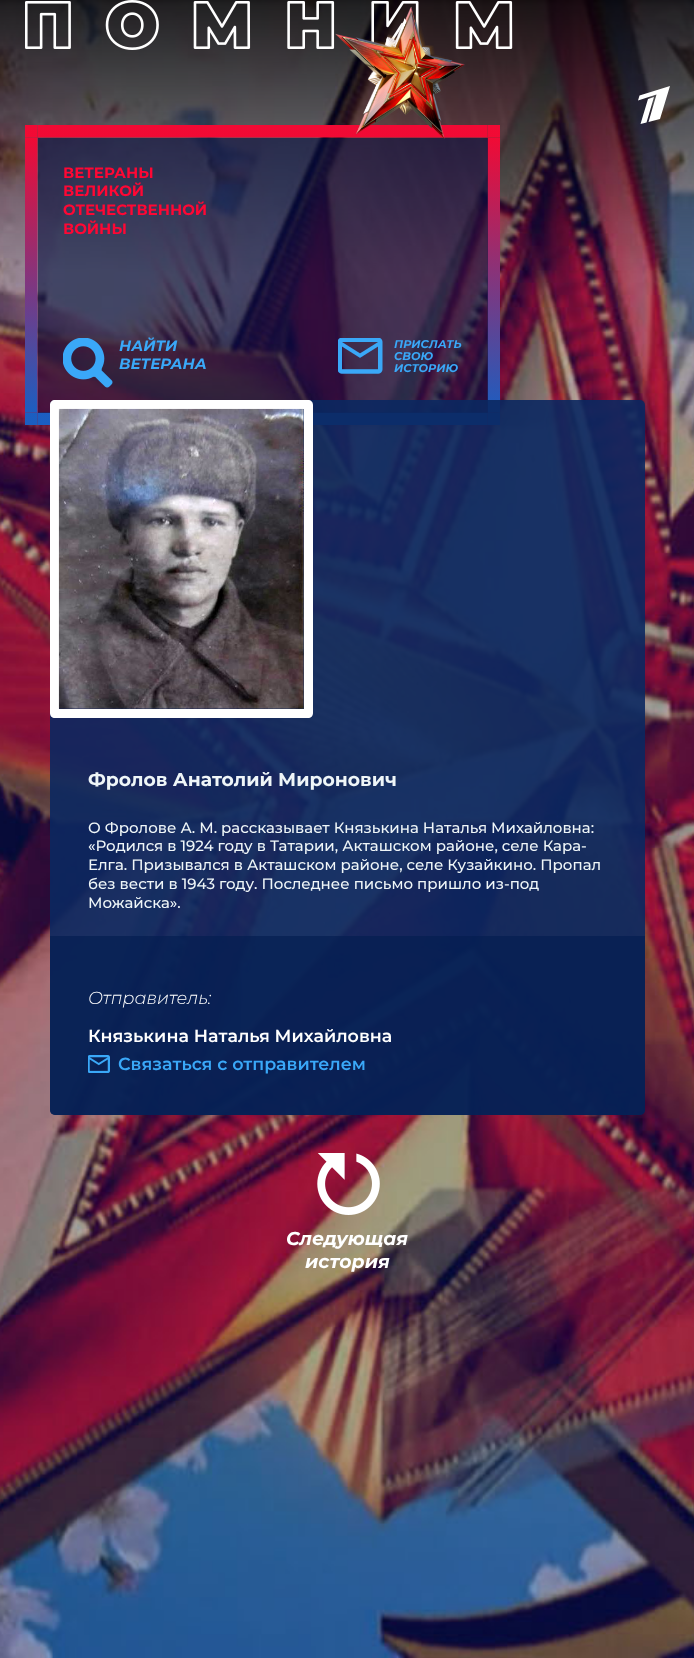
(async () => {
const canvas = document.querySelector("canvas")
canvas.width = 694
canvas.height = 1658
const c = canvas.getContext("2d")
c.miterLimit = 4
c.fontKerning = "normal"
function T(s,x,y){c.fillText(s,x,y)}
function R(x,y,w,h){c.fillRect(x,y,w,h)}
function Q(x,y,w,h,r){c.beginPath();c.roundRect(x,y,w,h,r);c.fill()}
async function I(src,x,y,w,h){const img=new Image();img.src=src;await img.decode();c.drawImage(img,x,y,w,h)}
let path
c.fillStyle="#fff"
R(0,0,694,1658)
await I("1.png",0,0,694,1658)
await I("2.png",25,0,488,50)
await I("4.png",25,125,475,300)
c.fillStyle="#070d4099"
R(38,138,450,275)
await I("3.png",335,6,130,133)
c.fillStyle="#fff"
path = new Path2D("M638 100.5l1.5-5l30.5-9.5l-10 33l-11.5 3l8-27.5zm2.5 23.5l7.5-25l6-2l-7.5 25.5z")
c.fill(path,"evenodd")
c.font="bold 15px Montserrat"
c.fillStyle="#ff0734"
T("ВЕТЕРАНЫ",63,178)
T("ВЕЛИКОЙ",63,196)
T("ОТЕЧЕСТВЕННОЙ",63,215)
T("ВОЙНЫ",63,234)
await I("5.png",63,338,50,50)
c.font="italic bold 15px Montserrat"
c.fillStyle="#3aa8f8"
T("НАЙТИ",119,351)
T("ВЕТЕРАНА",119,369)
await I("6.png",338,338,45,36)
c.font="italic bold 11.25px Montserrat"
T("ПРИСЛАТЬ",394,348)
T("СВОЮ",394,360)
T("ИСТОРИЮ",394,372)
c.fillStyle="#0b2861e6"
Q(50,400,595,715,5)
c.fillStyle="#fff"
path = new Path2D("M55 400c-3 0-5 2-5 5v308c0 3 2 5 5 5h253c3 0 5-2 5-5v-308c0-3-2-5-5-5zm4 9v300h245v-300z")
c.fill(path,"evenodd")
await I("7.png",58,408,246,301)
c.font="bold 18.75px Montserrat"
c.fillStyle="#eff6f8"
T("Фролов Анатолий Миронович",88,786)
c.font="500 15px Montserrat"
T("О Фролове А. М. рассказывает Князькина Наталья Михайловна:",88,833)
T("«Родился в 1924 году в Татарии, Акташском районе, селе Кара-",88,851)
T("Елга. Призывался в Акташском районе, селе Кузайкино. Пропал",88,870)
T("без вести в 1943 году. Последнее письмо пришло из-под",88,889)
T("Можайска».",88,908)
c.fillStyle="#041e51b3"
c.beginPath()
c.roundRect(50,936,595,179,[0,0,5,5])
c.fill()
c.font="italic 300 17.5px Montserrat"
c.fillStyle="#fff"
T("Отправитель:",88,1004)
c.font="600 17.5px Montserrat"
T("Князькина Наталья Михайловна",88,1042)
await I("8.png",88,1055,22,18)
c.fillStyle="#3aa8f8"
T("Связаться с отправителем",118,1070)
await I("9.png",317,1153,63,62)
c.font="italic bold 18.75px Montserrat"
c.fillStyle="#fff"
T("Следующая",286,1245)
T("история",305,1268)
})()
